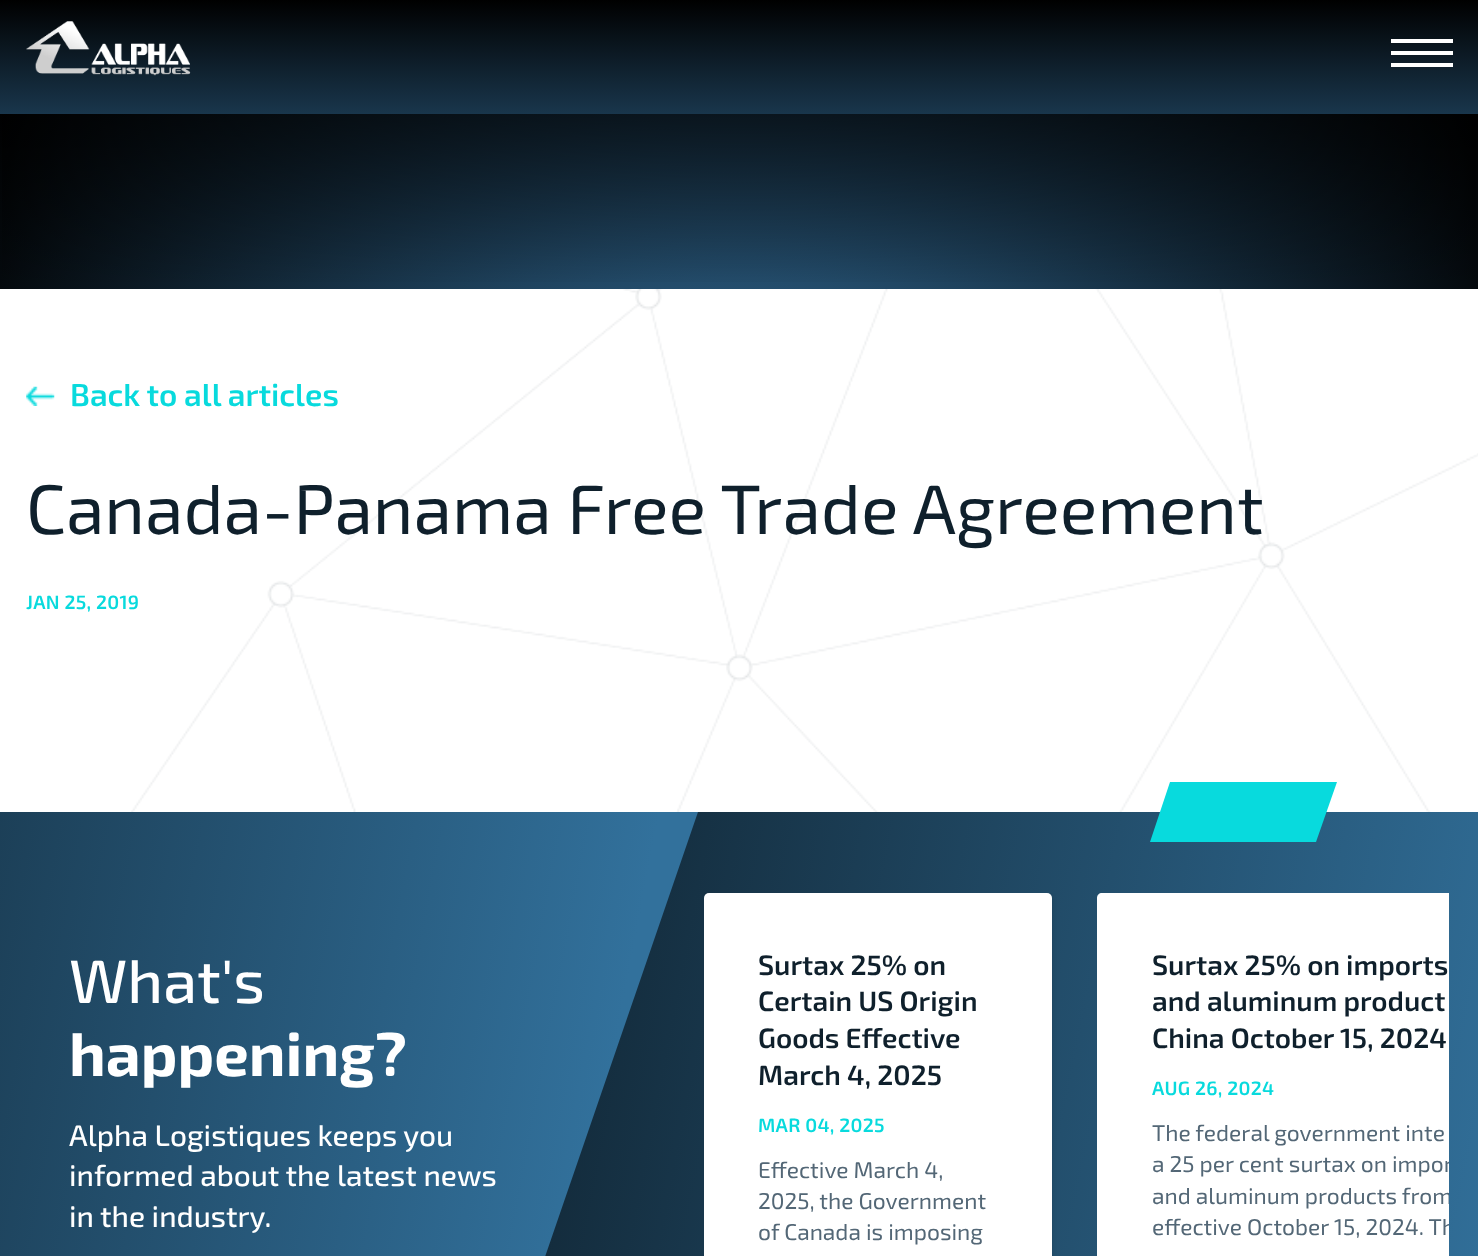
(async () => {
const canvas = document.querySelector("canvas")
canvas.width = 1478
canvas.height = 1256
const c = canvas.getContext("2d")
c.miterLimit = 4
c.fontKerning = "normal"
function T(s,x,y){c.fillText(s,x,y)}
function R(x,y,w,h){c.fillRect(x,y,w,h)}
function Q(x,y,w,h,r){c.beginPath();c.roundRect(x,y,w,h,r);c.fill()}
async function I(src,x,y,w,h){const img=new Image();img.src=src;await img.decode();c.drawImage(img,x,y,w,h)}
let gradient, path
c.fillStyle="#fff"
R(0,0,1478,1256)
gradient = c.createLinearGradient(739,228,739,0)
gradient.addColorStop(0,"#326c98")
gradient.addColorStop(1,"#000")
c.fillStyle = gradient
R(0,0,1478,114)
await I("1.png",26,21,165,55)
c.fillStyle="#fff"
R(1391,39,62,4)
R(1391,51,62,4)
R(1391,63,62,4)
await I("2.png",131,289,1347,523)
gradient = c.createRadialGradient(739,531,0,739,531,853)
gradient.addColorStop(0,"#326c98")
gradient.addColorStop(1,"#000")
c.fillStyle = gradient
R(0,114,1478,175)
gradient = c.createLinearGradient(739,289,739,105)
gradient.addColorStop(0,"#00000000")
gradient.addColorStop(1,"#000000a6")
c.fillStyle = gradient
R(2,114,1474,168)
await I("3.png",26,386,29,20)
c.font="600 31.5px 'Exo 2'"
c.fillStyle="#08dadd"
T("Back to all articles",70,406)
c.font="70px 'Exo 2'"
c.fillStyle="#0f202c"
T("Canada-Panama Free Trade Agreement",26,534)
c.letterSpacing="0.3px"
c.font="600 19.25px 'Exo 2'"
c.fillStyle="#08dadd"
T("JAN 25, 2019",26,609)
gradient = c.createLinearGradient(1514,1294,-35,993)
gradient.addColorStop(0,"#32719c")
gradient.addColorStop(1,"#000")
c.fillStyle = gradient
R(545,812,933,444)
gradient = c.createLinearGradient(572,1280,-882,1007)
gradient.addColorStop(0,"#32719c")
gradient.addColorStop(1,"#000")
c.fillStyle = gradient
path = new Path2D("M-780 812h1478l-228 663h-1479z")
c.fill(path)
c.letterSpacing="0px"
c.font="500 61.25px 'Exo 2'"
c.fillStyle="#fff"
T("What's",69,1003)
c.font="bold 61.25px 'Exo 2'"
T("happening?",69,1076)
c.font="500 29.75px 'Exo 2'"
T("Alpha Logistiques keeps you",69,1146)
T("informed about the latest news",69,1186)
T("in the industry.",69,1227)
c.fillStyle="#08dadd"
path = new Path2D("M1170 782h167l-21 60h-166z")
c.fill(path)
c.save()
c.beginPath()
c.rect(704,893,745,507)
c.clip()
c.fillStyle="#00000021"
c.filter="blur(2.5px)"
c.beginPath()
c.roundRect(704,894,348,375,5)
c.fill()
c.filter="none"
c.restore()
c.fillStyle="#fff"
Q(704,893,348,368,5)
c.font="600 28px 'Exo 2'"
c.fillStyle="#0f202c"
T("Surtax 25% on",758,975)
T("Certain US Origin",758,1011)
T("Goods Effective",758,1048)
T("March 4, 2025",758,1085)
c.letterSpacing="0.3px"
c.font="600 19.25px 'Exo 2'"
c.fillStyle="#08dadd"
T("MAR 04, 2025",758,1132)
c.letterSpacing="0px"
c.font="22.75px 'Exo 2'"
c.fillStyle="#536776"
T("Effective March 4,",758,1178)
T("2025, the Government",758,1209)
T("of Canada is imposing",758,1240)
c.fillStyle="#fff"
path = new Path2D("M1102 893h347v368h-347c-3 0-5-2-5-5v-358c0-3 2-5 5-5z")
c.fill(path)
c.font="600 28px 'Exo 2'"
c.fillStyle="#0f202c"
T("Surtax 25% on imports",1152,975)
T("and aluminum product",1152,1011)
T("China October 15, 2024",1152,1048)
c.letterSpacing="0.3px"
c.font="600 19.25px 'Exo 2'"
c.fillStyle="#08dadd"
T("AUG 26, 2024",1152,1095)
c.letterSpacing="0px"
c.font="22.75px 'Exo 2'"
c.fillStyle="#536776"
T("The federal government inte",1152,1141)
c.save()
c.beginPath()
c.rect(1152,1118,297,123)
c.clip()
T("a 25 per cent surtax on impor",1152,1172)
T("and aluminum products from",1152,1204)
T("effective October 15, 2024. Th",1152,1235)
c.restore()
})()
